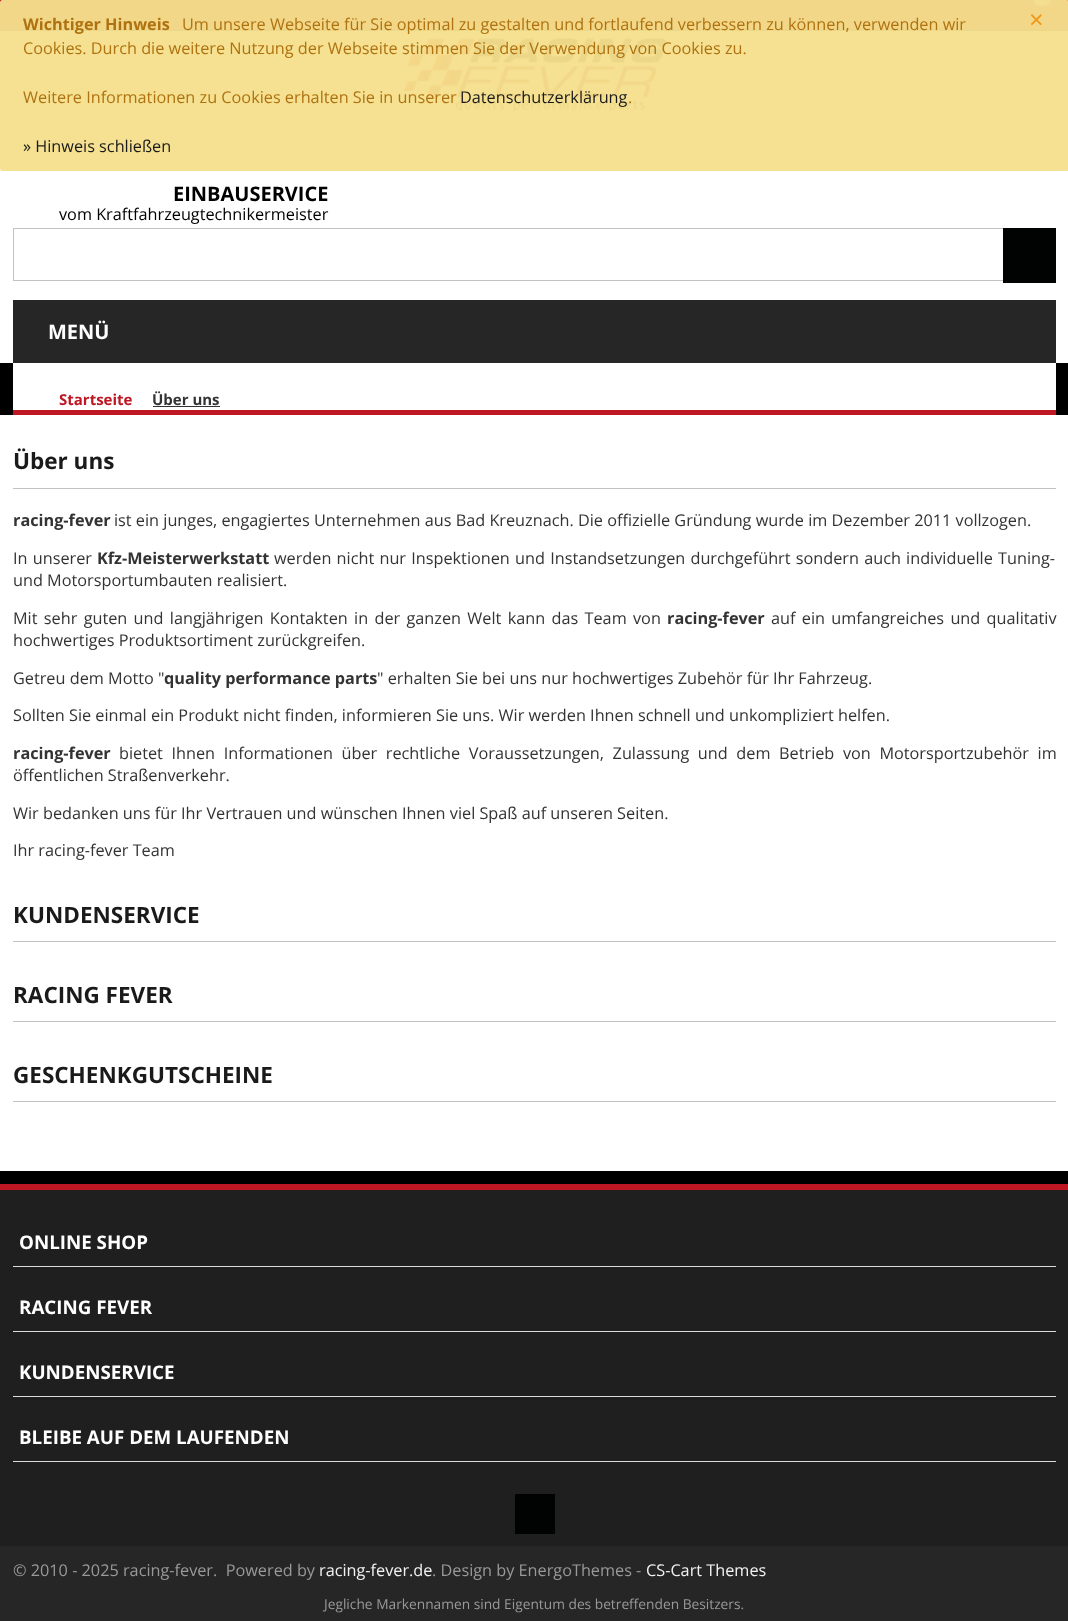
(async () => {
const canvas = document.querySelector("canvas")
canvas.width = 1068
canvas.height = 1621
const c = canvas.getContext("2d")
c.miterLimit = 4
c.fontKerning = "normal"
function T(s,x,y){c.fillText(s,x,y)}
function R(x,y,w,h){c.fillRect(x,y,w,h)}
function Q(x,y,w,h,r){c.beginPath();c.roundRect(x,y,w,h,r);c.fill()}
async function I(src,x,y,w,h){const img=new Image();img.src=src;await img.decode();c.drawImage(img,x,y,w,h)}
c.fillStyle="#000"
R(0,0,1068,1621)
c.fillStyle="#be1622"
R(0,0,1068,29)
c.fillStyle="#262626"
R(0,29,1068,2)
c.fillStyle="#bdbdbd"
Q(1033,-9,18,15,9)
c.fillStyle="#fff"
R(0,31,1068,332)
await I("1.png",403,38,264,74)
c.fillStyle="#f5e08cf5"
Q(0,0,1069,171,2.5)
c.font="bold 16.25px Open Sans"
c.fillStyle="#af7210"
T("Wichtiger Hinweis",23,30)
c.font="16.25px Open Sans"
T("Um unsere Webseite für Sie optimal zu gestalten und fortlaufend verbessern zu können, verwenden wir",182,30)
c.font="25px Liberation Sans"
c.fillStyle="#f19713"
T("×",1029,28)
c.font="16.25px Open Sans"
c.fillStyle="#af7210"
T("Cookies. Durch die weitere Nutzung der Webseite stimmen Sie der Verwendung von Cookies zu.",23,54)
T("Weitere Informationen zu Cookies erhalten Sie in unserer",23,103)
c.fillStyle="#1a1a1a"
T("Datenschutzerklärung",460,103)
c.fillStyle="#af7210"
T(".",628,103)
c.fillStyle="#1a1a1a"
T("» Hinweis schließen",23,152)
c.font="bold 20px Open Sans"
c.fillStyle="#000"
T("EINBAUSERVICE",173,201)
c.font="16.25px Open Sans"
T("vom Kraftfahrzeugtechnikermeister",59,220)
c.strokeStyle="#c2c2c2"
c.strokeRect(13.5,228.5,1042,52)
c.fillStyle="#010202"
R(1003,228,53,55)
c.fillStyle="#262626"
R(13,300,1043,63)
c.font="bold 20px Open Sans"
c.fillStyle="#fff"
T("MENÜ",48,339)
R(13,363,1043,47)
c.fillStyle="#be1622"
R(13,410,1043,5)
c.font="bold 15px Open Sans"
T("Startseite",59,405)
c.fillStyle="#333"
T("Über uns",152,405)
R(153,406,67,1)
c.fillStyle="#fff"
R(0,415,1068,756)
c.fillStyle="#c2c2c2"
R(13,488,1043,1)
c.font="bold 22.5px Open Sans"
c.fillStyle="#1a1a1a"
T("Über uns",13,469)
c.font="bold 16.25px Open Sans"
c.fillStyle="#333"
T("racing-fever",13,526)
c.font="16.25px Open Sans"
T("ist ein junges, engagiertes Unternehmen aus Bad Kreuznach. Die offizielle Gründung wurde im Dezember 2011 vollzogen.",114,526)
c.wordSpacing="1px"
T("In unserer",13,564)
c.wordSpacing="0px"
c.font="bold 16.25px Open Sans"
T("Kfz-Meisterwerkstatt",97,564)
c.wordSpacing="1px"
c.font="16.25px Open Sans"
T("werden nicht nur Inspektionen und Instandsetzungen durchgeführt sondern auch individuelle Tuning-",274,564)
c.wordSpacing="0px"
T("und Motorsportumbauten realisiert.",13,586)
c.wordSpacing="2.1px"
T("Mit sehr guten und langjährigen Kontakten in der ganzen Welt kann das Team von",13,624)
c.wordSpacing="0px"
c.font="bold 16.25px Open Sans"
T("racing-fever",667,624)
c.wordSpacing="2.1px"
c.font="16.25px Open Sans"
T("auf ein umfangreiches und qualitativ",771,624)
c.wordSpacing="0px"
T("hochwertiges Produktsortiment zurückgreifen.",13,646)
T("Getreu dem Motto \"",13,684)
c.font="bold 16.25px Open Sans"
T("quality performance parts",164,684)
c.font="16.25px Open Sans"
T("\" erhalten Sie bei uns nur hochwertiges Zubehör für Ihr Fahrzeug.",377,684)
T("Sollten Sie einmal ein Produkt nicht finden, informieren Sie uns. Wir werden Ihnen schnell und unkompliziert helfen.",13,721)
c.font="bold 16.25px Open Sans"
T("racing-fever",13,759)
c.wordSpacing="4.4px"
c.font="16.25px Open Sans"
T("bietet Ihnen Informationen über rechtliche Voraussetzungen, Zulassung und dem Betrieb von Motorsportzubehör im",119,759)
c.wordSpacing="0px"
T("öffentlichen Straßenverkehr.",13,781)
T("Wir bedanken uns für Ihr Vertrauen und wünschen Ihnen viel Spaß auf unseren Seiten.",13,819)
T("Ihr racing-fever Team",13,856)
c.fillStyle="#c2c2c2"
R(13,941,1043,1)
c.font="bold 22.5px Open Sans"
c.fillStyle="#1a1a1a"
T("KUNDENSERVICE",13,923)
c.fillStyle="#c2c2c2"
R(13,1021,1043,1)
c.fillStyle="#1a1a1a"
T("RACING FEVER",13,1003)
c.fillStyle="#c2c2c2"
R(13,1101,1043,1)
c.fillStyle="#1a1a1a"
T("GESCHENKGUTSCHEINE",13,1083)
c.fillStyle="#be1622"
R(0,1184,1068,6)
c.fillStyle="#1f1f1f"
R(0,1190,1068,356)
c.fillStyle="#dadcde"
R(13,1266,1043,1)
c.font="bold 18.75px Open Sans"
c.fillStyle="#fff"
T("ONLINE SHOP",19,1249)
c.fillStyle="#dadcde"
R(13,1331,1043,1)
c.fillStyle="#fff"
T("RACING FEVER",19,1314)
c.fillStyle="#dadcde"
R(13,1396,1043,1)
c.fillStyle="#fff"
T("KUNDENSERVICE",19,1379)
c.fillStyle="#dadcde"
R(13,1461,1043,1)
c.fillStyle="#fff"
T("BLEIBE AUF DEM LAUFENDEN",19,1444)
c.fillStyle="#010202"
R(515,1494,40,40)
c.fillStyle="#262626"
R(0,1546,1068,75)
c.font="16.25px Open Sans"
c.fillStyle="#999"
T("© 2010 - 2025 racing-fever.  Powered by",13,1576)
c.fillStyle="#f2f2f2"
T("racing-fever.de",319,1576)
c.fillStyle="#999"
T(". Design by EnergoThemes -",432,1576)
c.fillStyle="#f2f2f2"
T("CS-Cart Themes",646,1576)
c.font="13.75px Open Sans"
c.fillStyle="#999"
T("Jegliche Markennamen sind Eigentum des betreffenden Besitzers.",324,1609)
})()
